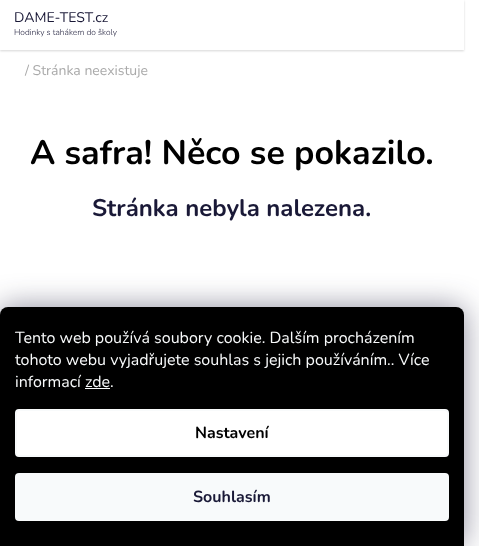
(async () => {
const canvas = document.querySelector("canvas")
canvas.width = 479
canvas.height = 546
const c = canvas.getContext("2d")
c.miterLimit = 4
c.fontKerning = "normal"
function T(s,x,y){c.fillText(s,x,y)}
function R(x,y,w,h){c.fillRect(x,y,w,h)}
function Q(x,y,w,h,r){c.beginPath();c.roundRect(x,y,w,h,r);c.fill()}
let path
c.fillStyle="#fff"
R(0,0,479,546)
c.save()
path = new Path2D("M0 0h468v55h-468zm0 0h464v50h-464z")
c.clip(path,"evenodd")
c.fillStyle="#00000029"
c.filter="blur(1px)"
c.beginPath()
c.rect(0,1,464,50)
c.fill()
c.filter="none"
c.restore()
c.font="14px Nunito"
c.fillStyle="#1a1937"
T("DAME-TEST.cz",14,22)
c.font="300 8.4px Nunito"
T("Hodinky s tahákem do školy",14,35)
c.font="14px Nunito"
c.fillStyle="#aaa"
T("/ Stránka neexistuje",25,75)
c.font="bold 34px Nunito"
c.fillStyle="#000"
T("A safra! Něco se pokazilo.",30,164)
c.font="bold 24px Nunito"
c.fillStyle="#1a1937"
T("Stránka nebyla nalezena.",92,216)
c.fillStyle="#1b193980"
c.filter="blur(15px)"
c.beginPath()
c.roundRect(0,307,464,239,8)
c.fill()
c.filter="none"
c.fillStyle="#000"
c.beginPath()
c.roundRect(0,307,464,239,[8,8,0,0])
c.fill()
c.font="16px Nunito"
c.fillStyle="#f8fafb"
T("Tento web používá soubory cookie. Dalším procházením",15,343)
T("tohoto webu vyjadřujete souhlas s jejich používáním.. Více",15,365)
T("informací zde.",15,387)
R(85,388,25,1)
c.fillStyle="#fff"
c.beginPath()
c.roundRect(16,410,432,46,3)
c.fill()
c.strokeStyle="#f8fafb"
c.lineWidth=2
c.stroke()
c.font="bold 16px Nunito"
c.fillStyle="#000"
T("Nastavení",195,438)
c.fillStyle="#f8fafb"
Q(15,473,434,48,4)
c.fillStyle="#1a1937"
T("Souhlasím",193,502)
})()
